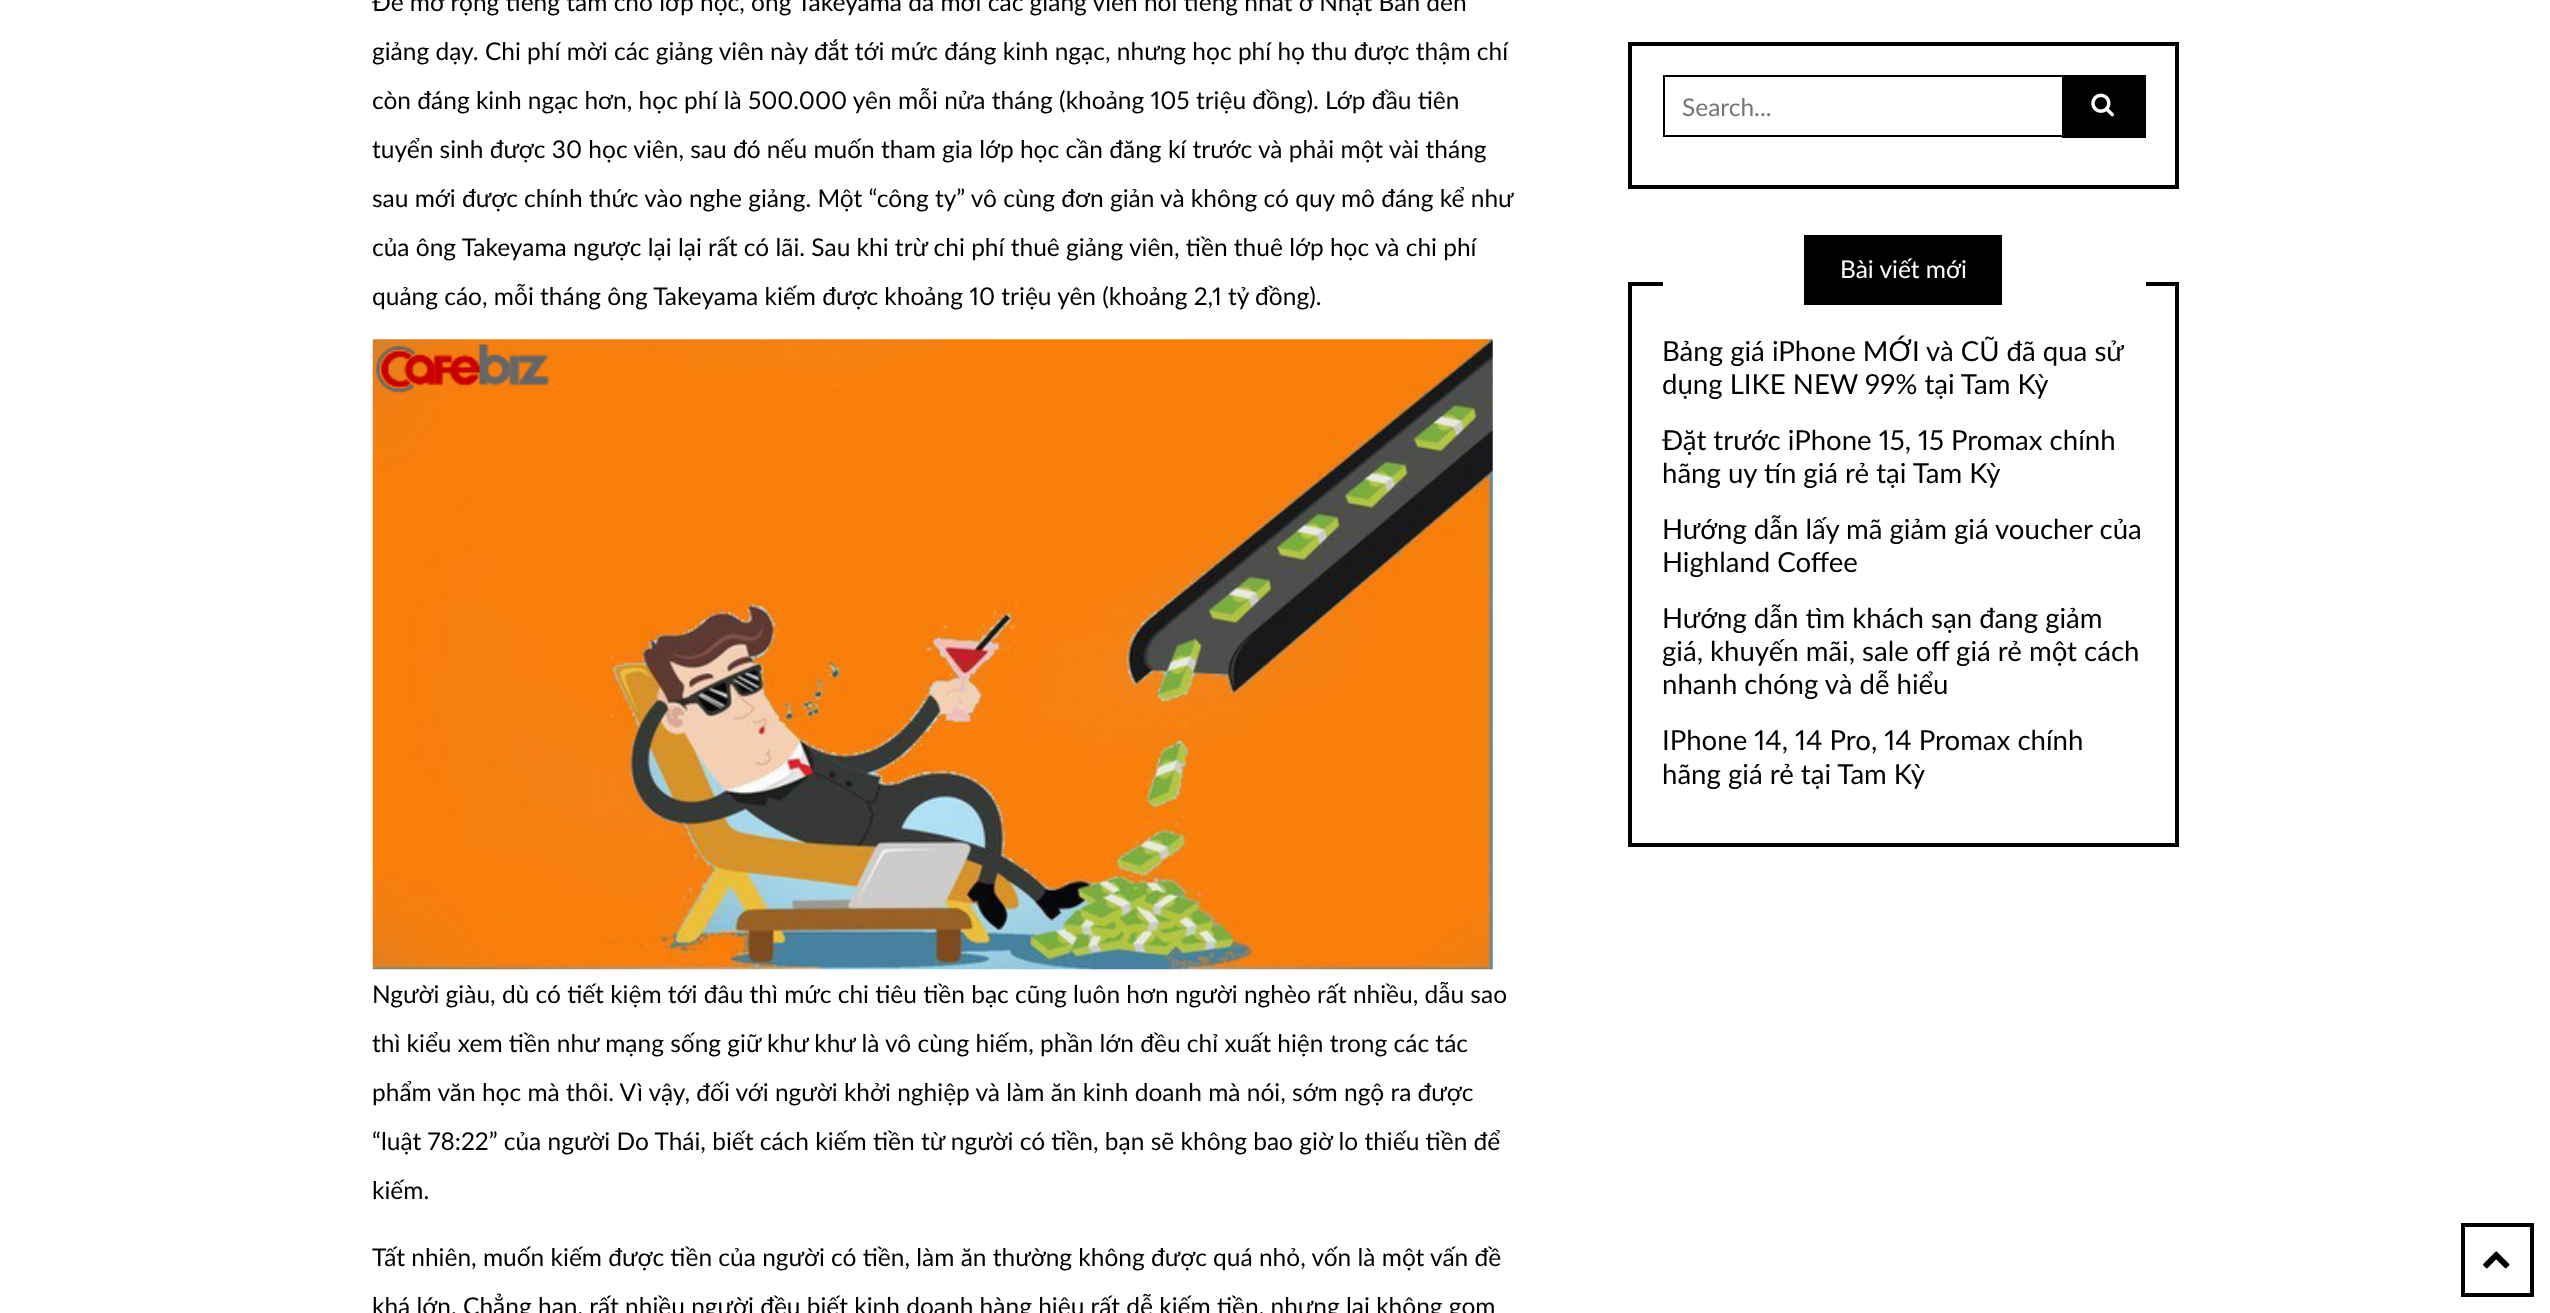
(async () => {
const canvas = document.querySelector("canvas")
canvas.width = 2550
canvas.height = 1313
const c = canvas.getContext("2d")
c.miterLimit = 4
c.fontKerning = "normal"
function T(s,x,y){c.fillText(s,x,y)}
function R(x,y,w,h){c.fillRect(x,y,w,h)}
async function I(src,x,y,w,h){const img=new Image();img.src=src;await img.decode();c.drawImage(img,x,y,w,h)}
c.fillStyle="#fff"
R(0,0,2550,1313)
c.font="24.5px Lato"
c.fillStyle="#000"
T("Để mở rộng tiếng tăm cho lớp học, ông Takeyama đã mời các giảng viên nổi tiếng nhất ở Nhật Bản đến",372,11)
T("giảng dạy. Chi phí mời các giảng viên này đắt tới mức đáng kinh ngạc, nhưng học phí họ thu được thậm chí",372,60)
c.font="24.5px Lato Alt"
T("còn đáng kinh ngạc hơn, học phí là 500.000 yên mỗi nửa tháng (khoảng 105 triệu đồng). Lớp đầu tiên",372,109)
T("tuyển sinh được 30 học viên, sau đó nếu muốn tham gia lớp học cần đăng kí trước và phải một vài tháng",372,158)
c.font="24.5px Lato"
T("sau mới được chính thức vào nghe giảng. Một “công ty” vô cùng đơn giản và không có quy mô đáng kể như",372,207)
T("của ông Takeyama ngược lại lại rất có lãi. Sau khi trừ chi phí thuê giảng viên, tiền thuê lớp học và chi phí",372,256)
c.font="24.5px Lato Alt"
T("quảng cáo, mỗi tháng ông Takeyama kiếm được khoảng 10 triệu yên (khoảng 2,1 tỷ đồng).",372,305)
await I("1.png",372,339,1121,631)
c.font="24.5px Lato"
T("Người giàu, dù có tiết kiệm tới đâu thì mức chi tiêu tiền bạc cũng luôn hơn người nghèo rất nhiều, dẫu sao",372,1003)
T("thì kiểu xem tiền như mạng sống giữ khư khư là vô cùng hiếm, phần lớn đều chỉ xuất hiện trong các tác",372,1052)
T("phẩm văn học mà thôi. Vì vậy, đối với người khởi nghiệp và làm ăn kinh doanh mà nói, sớm ngộ ra được",372,1101)
c.font="24.5px Lato Alt"
T("“luật 78:22” của người Do Thái, biết cách kiếm tiền từ người có tiền, bạn sẽ không bao giờ lo thiếu tiền để",372,1150)
c.font="24.5px Lato"
T("kiếm.",372,1199)
T("Tất nhiên, muốn kiếm được tiền của người có tiền, làm ăn thường không được quá nhỏ, vốn là một vấn đề",372,1266)
T("khá lớn. Chẳng hạn, rất nhiều người đều biết kinh doanh hàng hiệu rất dễ kiếm tiền, nhưng lại không gom",372,1315)
c.strokeStyle="#000"
c.lineWidth=4
c.strokeRect(1630,44,547,143)
c.lineWidth=2
c.strokeRect(1664,76,481,60)
c.fillStyle="#757575"
T("Search...",1682,116)
c.fillStyle="#000"
R(2062,77,84,61)
await I("2.png",2091,93,23,24)
c.lineWidth=4
c.strokeRect(1630,284,547,561)
c.fillStyle="#fff"
R(1663,282,483,4)
c.fillStyle="#000"
R(1804,235,198,70)
c.fillStyle="#fff"
T("Bài viết mới",1840,278)
c.font="27.6px Lato"
c.fillStyle="#000"
T("Bảng giá iPhone MỚI và CŨ đã qua sử",1662,361)
c.font="27.6px Lato Alt"
T("dụng LIKE NEW 99% tại Tam Kỳ",1662,394)
T("Đặt trước iPhone 15, 15 Promax chính",1662,450)
c.font="27.6px Lato"
T("hãng uy tín giá rẻ tại Tam Kỳ",1662,483)
T("Hướng dẫn lấy mã giảm giá voucher của",1662,539)
T("Highland Coffee",1662,572)
T("Hướng dẫn tìm khách sạn đang giảm",1662,628)
T("giá, khuyến mãi, sale off giá rẻ một cách",1662,661)
T("nhanh chóng và dễ hiểu",1662,694)
c.font="27.6px Lato Alt"
T("IPhone 14, 14 Pro, 14 Promax chính",1662,750)
c.font="27.6px Lato"
T("hãng giá rẻ tại Tam Kỳ",1662,784)
c.strokeRect(2463,1225,69,70)
await I("3.png",2483,1251,27,18)
})()
